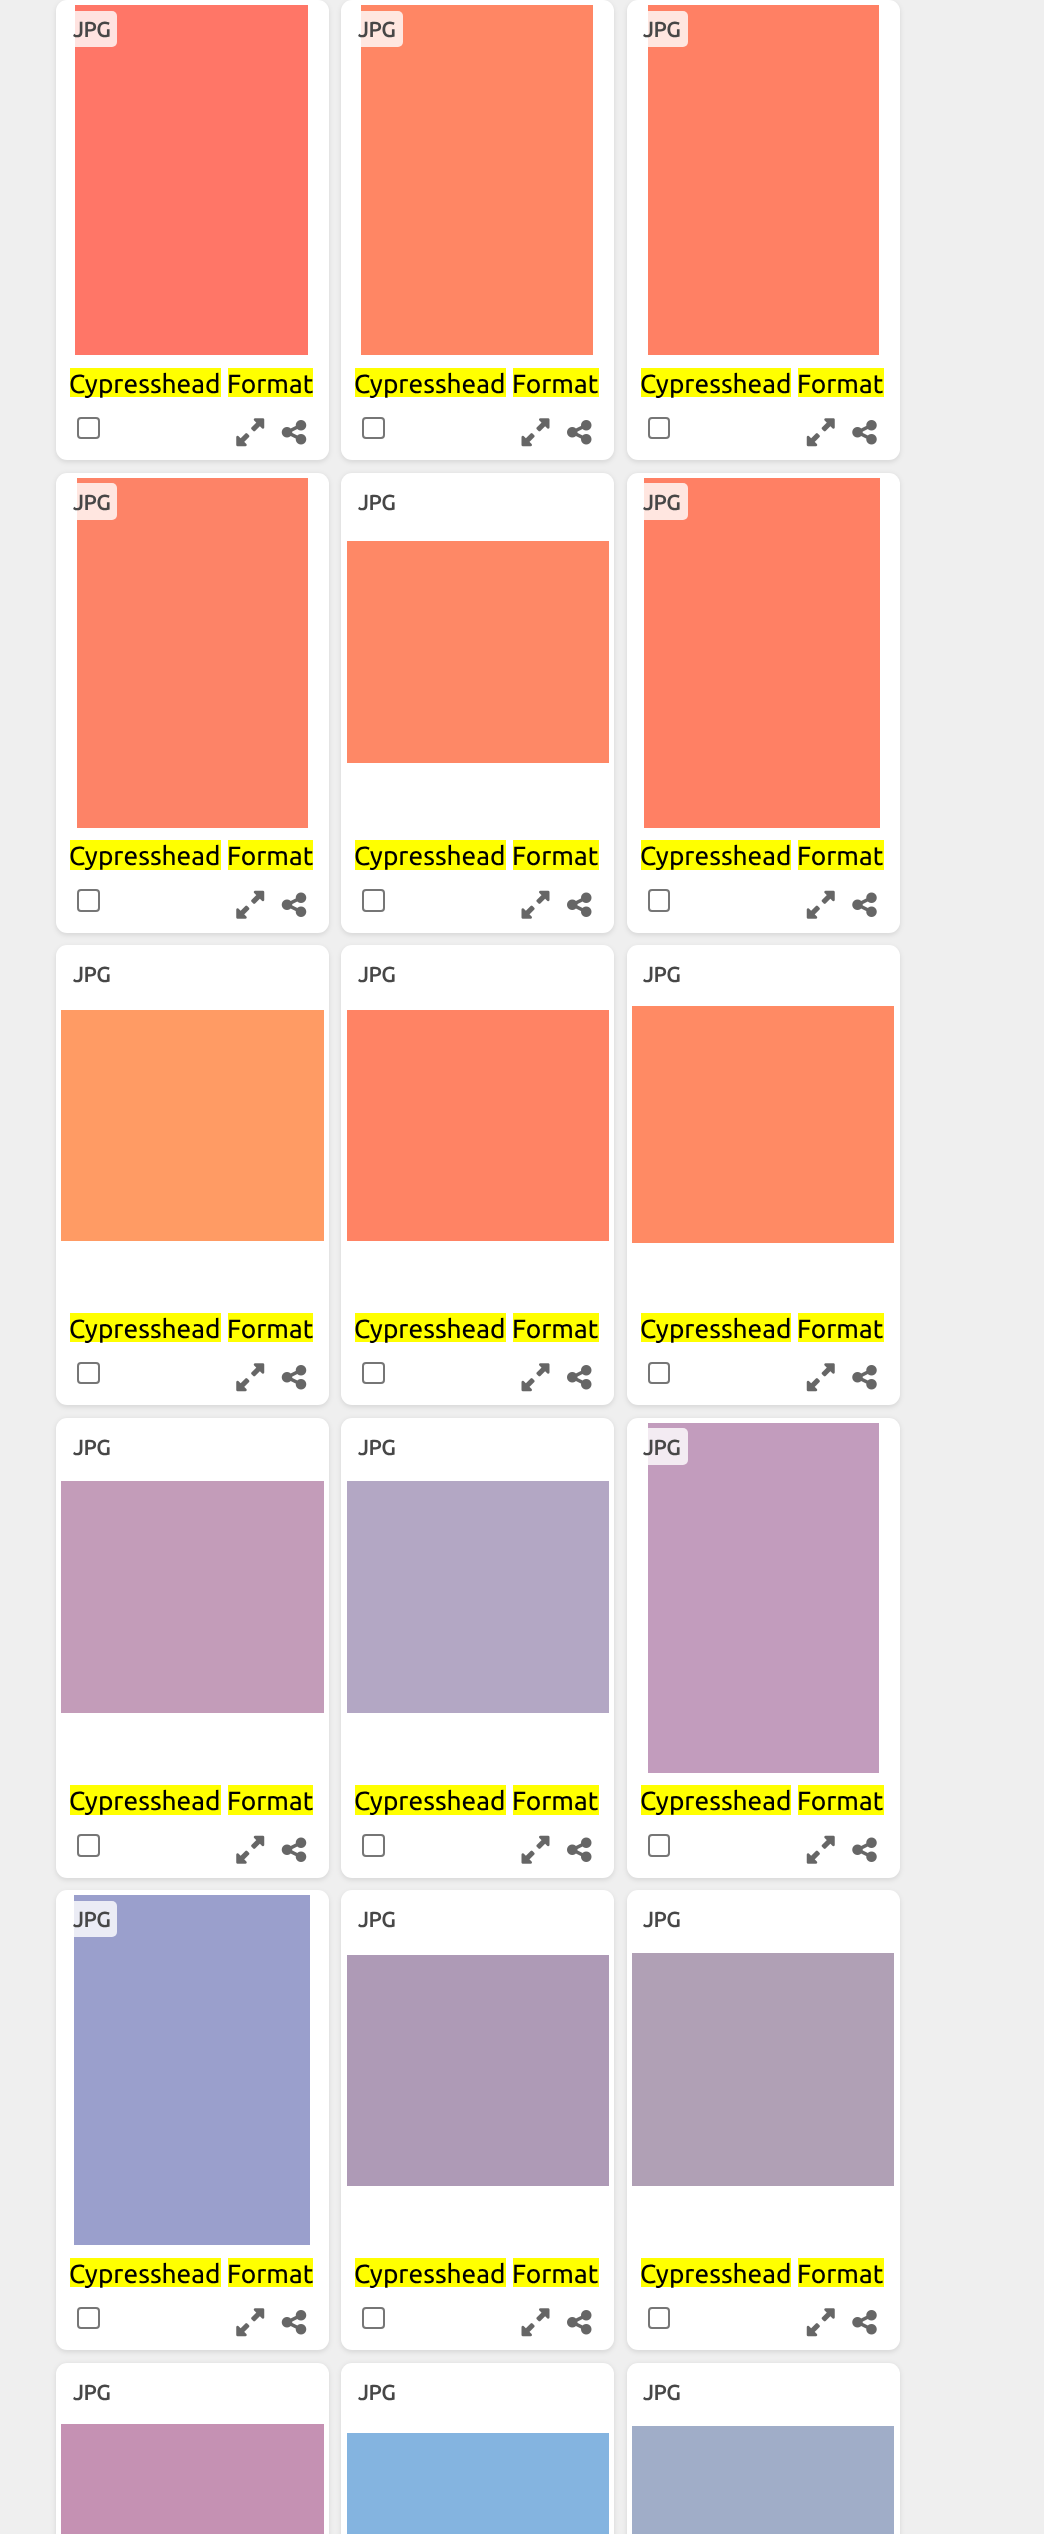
(async () => {
const canvas = document.querySelector("canvas")
canvas.width = 1044
canvas.height = 2534
const c = canvas.getContext("2d")
c.miterLimit = 4
c.fontKerning = "normal"
function T(s,x,y){c.fillText(s,x,y)}
function R(x,y,w,h){c.fillRect(x,y,w,h)}
function Q(x,y,w,h,r){c.beginPath();c.roundRect(x,y,w,h,r);c.fill()}
async function I(src,x,y,w,h){const img=new Image();img.src=src;await img.decode();c.drawImage(img,x,y,w,h)}
c.fillStyle="#efefef"
R(0,0,1044,2534)
c.fillStyle="#0000001a"
c.filter="blur(2.5px)"
c.beginPath()
c.roundRect(56,2,273,460,11)
c.fill()
c.filter="none"
c.fillStyle="#fff"
Q(56,0,273,460,11)
c.fillStyle="#ff7667"
R(75,5,233,350)
c.fillStyle="#ffffffcc"
Q(67,11,50,36,5)
c.font="bold 21px Ubuntu"
c.fillStyle="#474747"
T("JPG",73,37)
c.fillStyle="#ff0"
R(70,368,151,29)
c.font="26.25px Ubuntu"
c.fillStyle="#000"
T("Cypresshead",69,393)
c.fillStyle="#ff0"
R(228,368,85,29)
c.fillStyle="#000"
T("Format",227,393)
c.beginPath()
c.roundRect(78,418,21,20,3)
c.strokeStyle="#767676"
c.lineWidth=2
c.stroke()
await I("1.png",236,418,29,29)
await I("2.png",281,420,26,25)
c.fillStyle="#0000001a"
c.filter="blur(2.5px)"
c.beginPath()
c.roundRect(341,2,273,460,11)
c.fill()
c.filter="none"
c.fillStyle="#fff"
Q(341,0,273,460,11)
c.fillStyle="#ff8664"
R(361,5,232,350)
c.fillStyle="#ffffffcc"
Q(352,11,51,36,5)
c.font="bold 21px Ubuntu"
c.fillStyle="#474747"
T("JPG",358,37)
c.fillStyle="#ff0"
R(355,368,151,29)
c.font="26.25px Ubuntu"
c.fillStyle="#000"
T("Cypresshead",354,393)
c.fillStyle="#ff0"
R(513,368,86,29)
c.fillStyle="#000"
T("Format",512,393)
c.beginPath()
c.roundRect(363,418,21,20,3)
c.stroke()
await I("3.png",521,418,29,29)
await I("4.png",567,420,25,25)
c.fillStyle="#0000001a"
c.filter="blur(2.5px)"
c.beginPath()
c.roundRect(627,2,273,460,11)
c.fill()
c.filter="none"
c.fillStyle="#fff"
Q(627,0,273,460,11)
c.fillStyle="#ff8064"
R(648,5,231,350)
c.fillStyle="#ffffffcc"
Q(637,11,51,36,5)
c.font="bold 21px Ubuntu"
c.fillStyle="#474747"
T("JPG",643,37)
c.fillStyle="#ff0"
R(641,368,150,29)
c.font="26.25px Ubuntu"
c.fillStyle="#000"
T("Cypresshead",640,393)
c.fillStyle="#ff0"
R(798,368,86,29)
c.fillStyle="#000"
T("Format",797,393)
c.beginPath()
c.roundRect(649,418,20,20,3)
c.stroke()
await I("5.png",806,418,29,29)
await I("6.png",852,420,25,25)
c.fillStyle="#0000001a"
c.filter="blur(2.5px)"
c.beginPath()
c.roundRect(56,474,273,461,11)
c.fill()
c.filter="none"
c.fillStyle="#fff"
Q(56,473,273,460,11)
c.fillStyle="#fd8367"
R(77,478,231,350)
c.fillStyle="#ffffffcc"
Q(67,483,50,37,5)
c.font="bold 21px Ubuntu"
c.fillStyle="#474747"
T("JPG",73,510)
c.fillStyle="#ff0"
R(70,840,151,30)
c.font="26.25px Ubuntu"
c.fillStyle="#000"
T("Cypresshead",69,865)
c.fillStyle="#ff0"
R(228,840,85,30)
c.fillStyle="#000"
T("Format",227,865)
c.beginPath()
c.roundRect(78,890,21,21,3)
c.stroke()
await I("7.png",236,890,29,29)
await I("8.png",281,892,26,25)
c.fillStyle="#0000001a"
c.filter="blur(2.5px)"
c.beginPath()
c.roundRect(341,474,273,461,11)
c.fill()
c.filter="none"
c.fillStyle="#fff"
Q(341,473,273,460,11)
c.font="bold 21px Ubuntu"
c.fillStyle="#474747"
T("JPG",358,510)
c.fillStyle="#fe8866"
R(347,541,262,222)
c.fillStyle="#ff0"
R(355,840,151,30)
c.font="26.25px Ubuntu"
c.fillStyle="#000"
T("Cypresshead",354,865)
c.fillStyle="#ff0"
R(513,840,86,30)
c.fillStyle="#000"
T("Format",512,865)
c.beginPath()
c.roundRect(363,890,21,21,3)
c.stroke()
await I("9.png",521,890,29,29)
await I("10.png",567,892,25,25)
c.fillStyle="#0000001a"
c.filter="blur(2.5px)"
c.beginPath()
c.roundRect(627,474,273,461,11)
c.fill()
c.filter="none"
c.fillStyle="#fff"
Q(627,473,273,460,11)
c.fillStyle="#ff8064"
R(644,478,236,350)
c.fillStyle="#ffffffcc"
Q(637,483,51,37,5)
c.font="bold 21px Ubuntu"
c.fillStyle="#474747"
T("JPG",643,510)
c.fillStyle="#ff0"
R(641,840,150,30)
c.font="26.25px Ubuntu"
c.fillStyle="#000"
T("Cypresshead",640,865)
c.fillStyle="#ff0"
R(798,840,86,30)
c.fillStyle="#000"
T("Format",797,865)
c.beginPath()
c.roundRect(649,890,20,21,3)
c.stroke()
await I("11.png",806,890,29,29)
await I("12.png",852,892,25,25)
c.fillStyle="#0000001a"
c.filter="blur(2.5px)"
c.beginPath()
c.roundRect(56,947,273,460,11)
c.fill()
c.filter="none"
c.fillStyle="#fff"
Q(56,945,273,460,11)
c.font="bold 21px Ubuntu"
c.fillStyle="#474747"
T("JPG",73,982)
c.fillStyle="#ff9b64"
R(61,1010,263,231)
c.fillStyle="#ff0"
R(70,1313,151,29)
c.font="26.25px Ubuntu"
c.fillStyle="#000"
T("Cypresshead",69,1338)
c.fillStyle="#ff0"
R(228,1313,85,29)
c.fillStyle="#000"
T("Format",227,1338)
c.beginPath()
c.roundRect(78,1363,21,20,3)
c.stroke()
await I("1.png",236,1363,29,29)
await I("2.png",281,1365,26,25)
c.fillStyle="#0000001a"
c.filter="blur(2.5px)"
c.beginPath()
c.roundRect(341,947,273,460,11)
c.fill()
c.filter="none"
c.fillStyle="#fff"
Q(341,945,273,460,11)
c.font="bold 21px Ubuntu"
c.fillStyle="#474747"
T("JPG",358,982)
c.fillStyle="#ff8364"
R(347,1010,262,231)
c.fillStyle="#ff0"
R(355,1313,151,29)
c.font="26.25px Ubuntu"
c.fillStyle="#000"
T("Cypresshead",354,1338)
c.fillStyle="#ff0"
R(513,1313,86,29)
c.fillStyle="#000"
T("Format",512,1338)
c.beginPath()
c.roundRect(363,1363,21,20,3)
c.stroke()
await I("3.png",521,1363,29,29)
await I("4.png",567,1365,25,25)
c.fillStyle="#0000001a"
c.filter="blur(2.5px)"
c.beginPath()
c.roundRect(627,947,273,460,11)
c.fill()
c.filter="none"
c.fillStyle="#fff"
Q(627,945,273,460,11)
c.font="bold 21px Ubuntu"
c.fillStyle="#474747"
T("JPG",643,982)
c.fillStyle="#ff8a64"
R(632,1006,262,237)
c.fillStyle="#ff0"
R(641,1313,150,29)
c.font="26.25px Ubuntu"
c.fillStyle="#000"
T("Cypresshead",640,1338)
c.fillStyle="#ff0"
R(798,1313,86,29)
c.fillStyle="#000"
T("Format",797,1338)
c.beginPath()
c.roundRect(649,1363,20,20,3)
c.stroke()
await I("5.png",806,1363,29,29)
await I("6.png",852,1365,25,25)
c.fillStyle="#0000001a"
c.filter="blur(2.5px)"
c.beginPath()
c.roundRect(56,1419,273,461,11)
c.fill()
c.filter="none"
c.fillStyle="#fff"
Q(56,1418,273,460,11)
c.font="bold 21px Ubuntu"
c.fillStyle="#474747"
T("JPG",73,1455)
c.fillStyle="#c39cb9"
R(61,1481,263,232)
c.fillStyle="#ff0"
R(70,1785,151,30)
c.font="26.25px Ubuntu"
c.fillStyle="#000"
T("Cypresshead",69,1810)
c.fillStyle="#ff0"
R(228,1785,85,30)
c.fillStyle="#000"
T("Format",227,1810)
c.beginPath()
c.roundRect(78,1835,21,21,3)
c.stroke()
await I("7.png",236,1835,29,29)
await I("8.png",281,1837,26,25)
c.fillStyle="#0000001a"
c.filter="blur(2.5px)"
c.beginPath()
c.roundRect(341,1419,273,461,11)
c.fill()
c.filter="none"
c.fillStyle="#fff"
Q(341,1418,273,460,11)
c.font="bold 21px Ubuntu"
c.fillStyle="#474747"
T("JPG",358,1455)
c.fillStyle="#b3a7c4"
R(347,1481,262,232)
c.fillStyle="#ff0"
R(355,1785,151,30)
c.font="26.25px Ubuntu"
c.fillStyle="#000"
T("Cypresshead",354,1810)
c.fillStyle="#ff0"
R(513,1785,86,30)
c.fillStyle="#000"
T("Format",512,1810)
c.beginPath()
c.roundRect(363,1835,21,21,3)
c.stroke()
await I("9.png",521,1835,29,29)
await I("10.png",567,1837,25,25)
c.fillStyle="#0000001a"
c.filter="blur(2.5px)"
c.beginPath()
c.roundRect(627,1419,273,461,11)
c.fill()
c.filter="none"
c.fillStyle="#fff"
Q(627,1418,273,460,11)
c.fillStyle="#c29cbd"
R(648,1423,231,350)
c.fillStyle="#ffffffcc"
Q(637,1428,51,37,5)
c.font="bold 21px Ubuntu"
c.fillStyle="#474747"
T("JPG",643,1455)
c.fillStyle="#ff0"
R(641,1785,150,30)
c.font="26.25px Ubuntu"
c.fillStyle="#000"
T("Cypresshead",640,1810)
c.fillStyle="#ff0"
R(798,1785,86,30)
c.fillStyle="#000"
T("Format",797,1810)
c.beginPath()
c.roundRect(649,1835,20,21,3)
c.stroke()
await I("11.png",806,1835,29,29)
await I("12.png",852,1837,25,25)
c.fillStyle="#0000001a"
c.filter="blur(2.5px)"
c.beginPath()
c.roundRect(56,1892,273,460,11)
c.fill()
c.filter="none"
c.fillStyle="#fff"
Q(56,1890,273,460,11)
c.fillStyle="#9a9fcc"
R(74,1895,236,350)
c.fillStyle="#ffffffcc"
Q(67,1901,50,36,5)
c.font="bold 21px Ubuntu"
c.fillStyle="#474747"
T("JPG",73,1927)
c.fillStyle="#ff0"
R(70,2258,151,29)
c.font="26.25px Ubuntu"
c.fillStyle="#000"
T("Cypresshead",69,2283)
c.fillStyle="#ff0"
R(228,2258,85,29)
c.fillStyle="#000"
T("Format",227,2283)
c.beginPath()
c.roundRect(78,2308,21,20,3)
c.stroke()
await I("1.png",236,2308,29,29)
await I("2.png",281,2310,26,25)
c.fillStyle="#0000001a"
c.filter="blur(2.5px)"
c.beginPath()
c.roundRect(341,1892,273,460,11)
c.fill()
c.filter="none"
c.fillStyle="#fff"
Q(341,1890,273,460,11)
c.font="bold 21px Ubuntu"
c.fillStyle="#474747"
T("JPG",358,1927)
c.fillStyle="#ae9ab6"
R(347,1955,262,231)
c.fillStyle="#ff0"
R(355,2258,151,29)
c.font="26.25px Ubuntu"
c.fillStyle="#000"
T("Cypresshead",354,2283)
c.fillStyle="#ff0"
R(513,2258,86,29)
c.fillStyle="#000"
T("Format",512,2283)
c.beginPath()
c.roundRect(363,2308,21,20,3)
c.stroke()
await I("3.png",521,2308,29,29)
await I("4.png",567,2310,25,25)
c.fillStyle="#0000001a"
c.filter="blur(2.5px)"
c.beginPath()
c.roundRect(627,1892,273,460,11)
c.fill()
c.filter="none"
c.fillStyle="#fff"
Q(627,1890,273,460,11)
c.font="bold 21px Ubuntu"
c.fillStyle="#474747"
T("JPG",643,1927)
c.fillStyle="#b0a0b5"
R(632,1953,262,233)
c.fillStyle="#ff0"
R(641,2258,150,29)
c.font="26.25px Ubuntu"
c.fillStyle="#000"
T("Cypresshead",640,2283)
c.fillStyle="#ff0"
R(798,2258,86,29)
c.fillStyle="#000"
T("Format",797,2283)
c.beginPath()
c.roundRect(649,2308,20,20,3)
c.stroke()
await I("5.png",806,2308,29,29)
await I("6.png",852,2310,25,25)
c.fillStyle="#0000001a"
c.filter="blur(2.5px)"
c.beginPath()
c.roundRect(56,2364,273,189,11)
c.fill()
c.filter="none"
c.fillStyle="#fff"
Q(56,2363,273,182,11)
c.font="bold 21px Ubuntu"
c.fillStyle="#474747"
T("JPG",73,2400)
c.fillStyle="#c591b3"
R(61,2424,263,110)
c.fillStyle="#0000001a"
c.filter="blur(2.5px)"
c.beginPath()
c.roundRect(341,2364,273,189,11)
c.fill()
c.filter="none"
c.fillStyle="#fff"
Q(341,2363,273,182,11)
c.fillStyle="#474747"
T("JPG",358,2400)
c.fillStyle="#84b4e0"
R(347,2433,262,101)
c.fillStyle="#0000001a"
c.filter="blur(2.5px)"
c.beginPath()
c.roundRect(627,2364,273,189,11)
c.fill()
c.filter="none"
c.fillStyle="#fff"
Q(627,2363,273,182,11)
c.fillStyle="#474747"
T("JPG",643,2400)
c.fillStyle="#a0adc8"
R(632,2426,262,108)
})()
